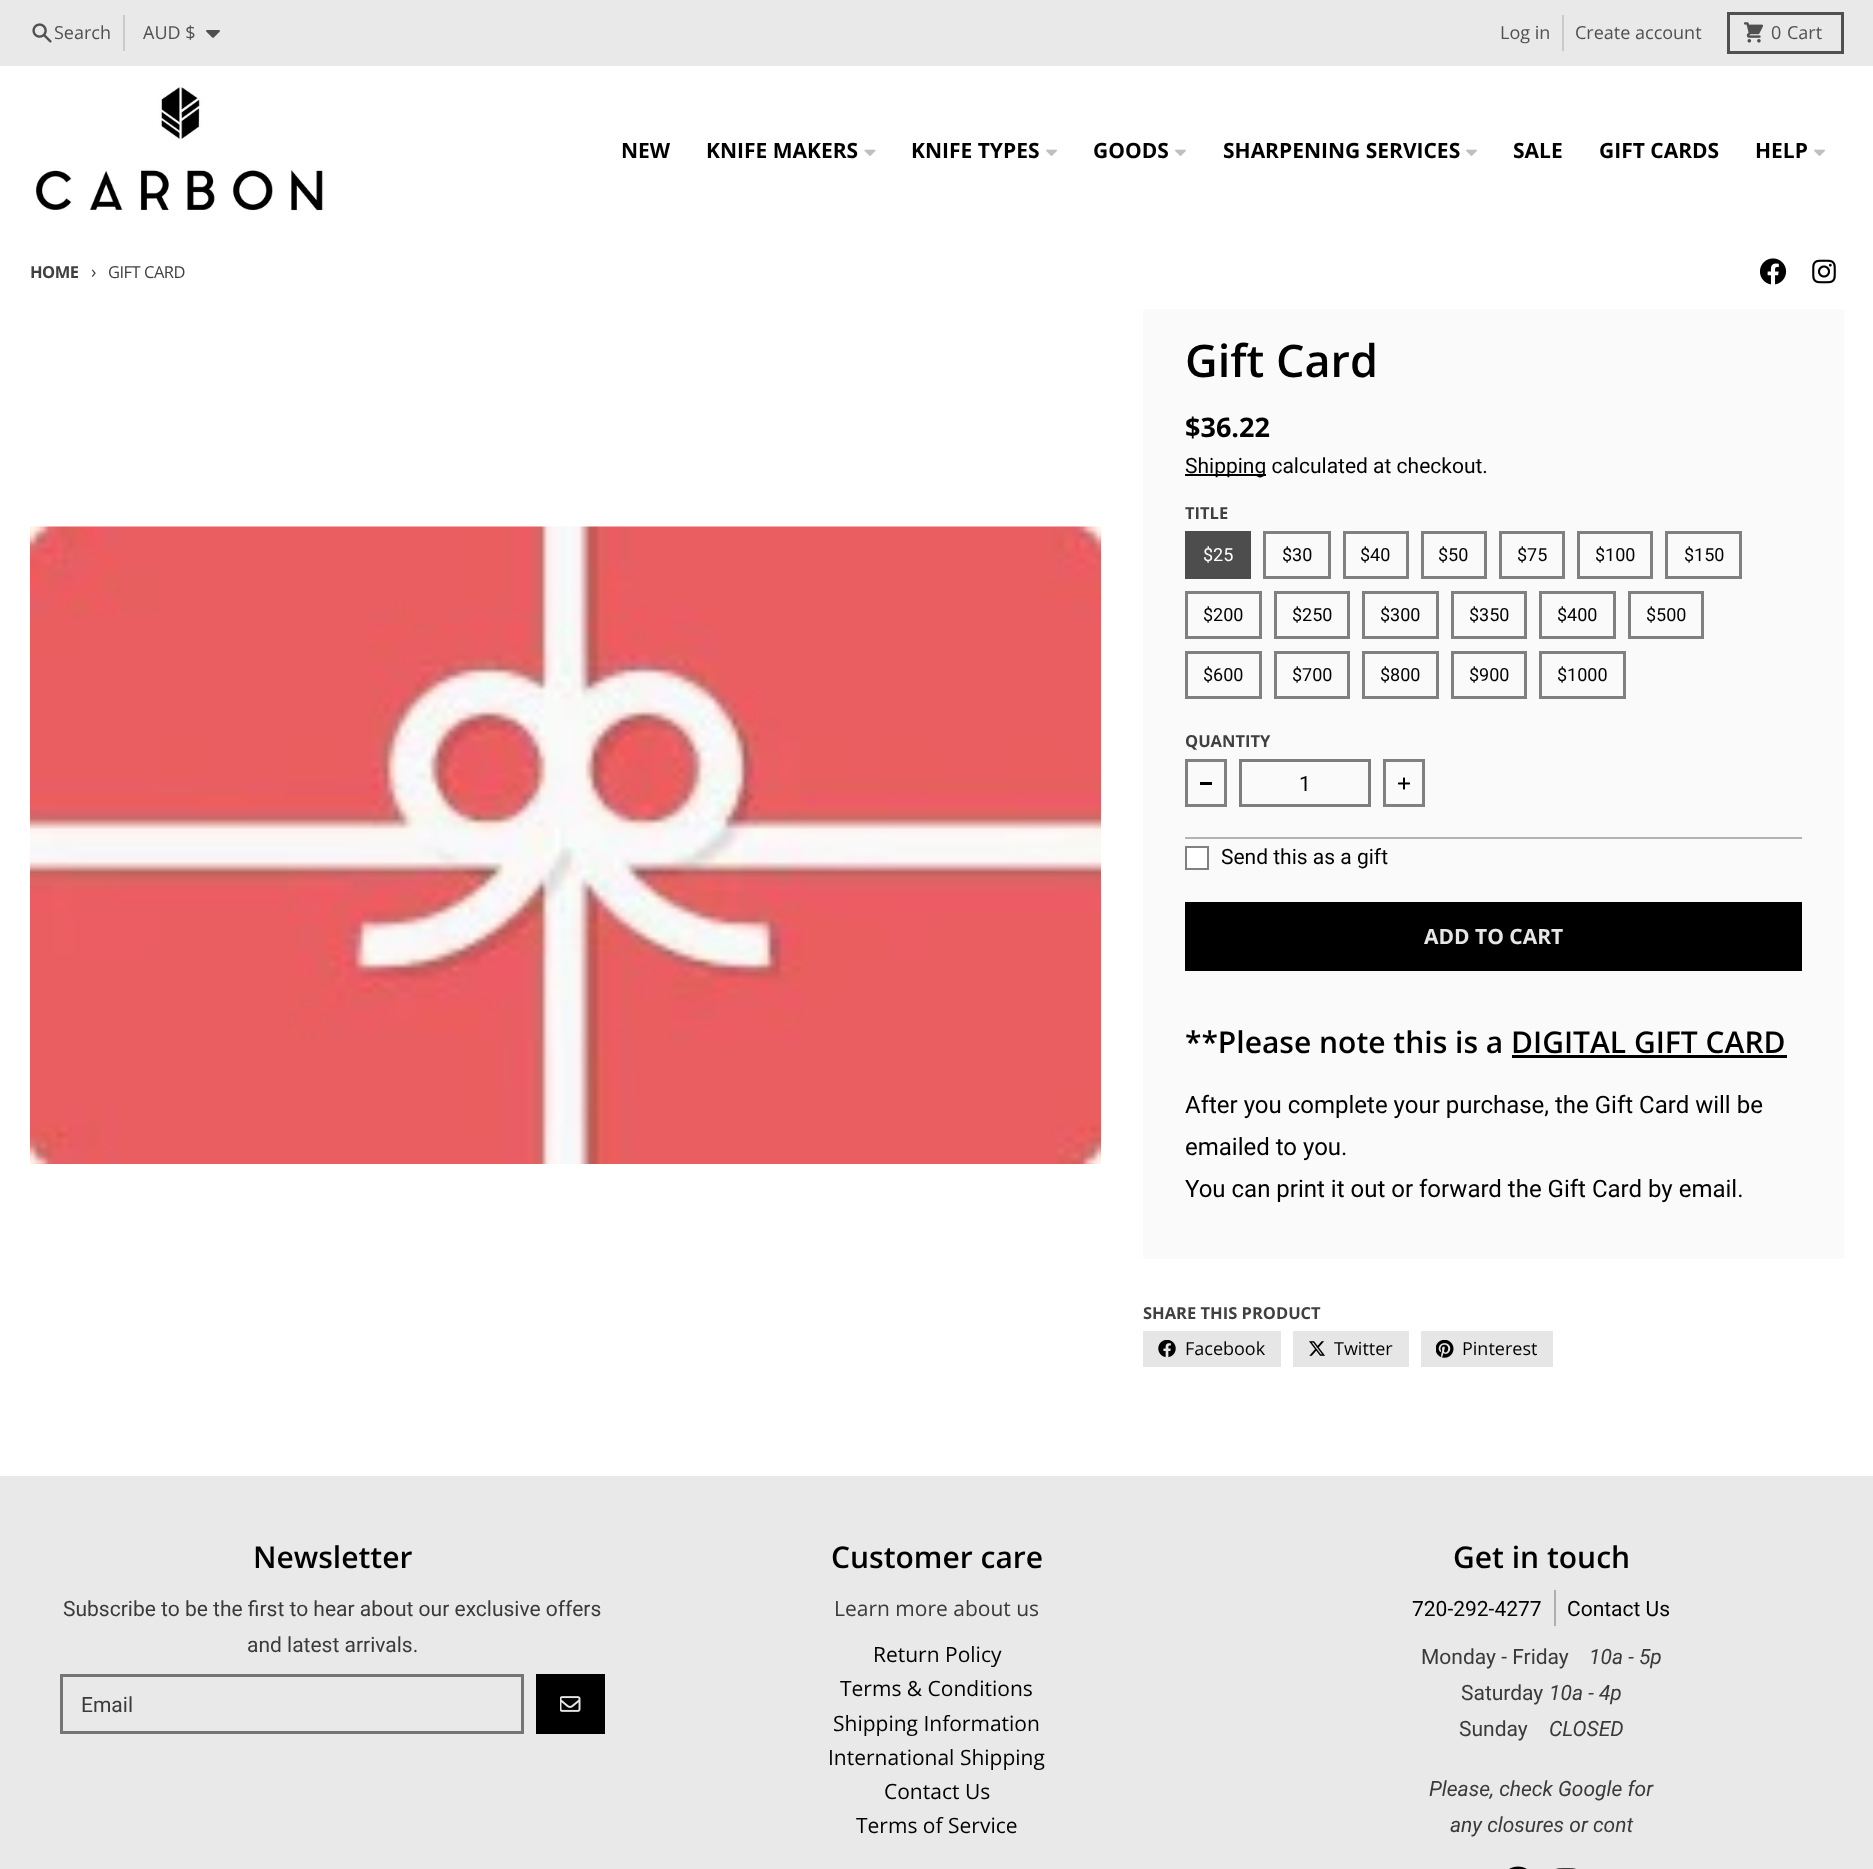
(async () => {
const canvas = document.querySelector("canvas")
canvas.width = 1873
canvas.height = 1869
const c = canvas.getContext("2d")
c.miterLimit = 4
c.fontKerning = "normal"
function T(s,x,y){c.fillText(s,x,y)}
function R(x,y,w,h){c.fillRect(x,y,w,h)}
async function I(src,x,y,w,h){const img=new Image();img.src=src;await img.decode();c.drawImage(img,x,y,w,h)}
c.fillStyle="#e9e9e9"
R(0,0,1873,1869)
await I("1.png",32,23,20,20)
c.font="18px Open Sans"
c.fillStyle="#505050"
T("Search",54,39)
c.fillStyle="#cacaca"
R(123,15,2,36)
c.fillStyle="#505050"
T("AUD $",143,39)
await I("2.png",206,30,14,8)
T("Log in",1500,39)
c.fillStyle="#cacaca"
R(1562,15,2,36)
c.fillStyle="#505050"
T("Create account",1575,39)
c.strokeStyle="#505050"
c.lineWidth=3
c.strokeRect(1728.5,13.5,114,39)
await I("3.png",1743,22,21,21)
T("0",1771,39)
T("Cart",1787,39)
c.fillStyle="#fff"
R(0,66,1873,1410)
await I("4.png",36,87,288,124)
c.font="bold 21px Open Sans"
c.fillStyle="#000"
T("NEW",621,158)
T("KNIFE MAKERS",706,158)
await I("5.png",864,149,12,7)
T("KNIFE TYPES",911,158)
await I("6.png",1046,149,11,7)
T("GOODS",1093,158)
await I("6.png",1175,149,11,7)
T("SHARPENING SERVICES",1223,158)
await I("6.png",1466,149,11,7)
T("SALE",1513,158)
T("GIFT CARDS",1599,158)
T("HELP",1755,158)
await I("6.png",1814,149,11,7)
c.letterSpacing="-0.5px"
c.font="bold 16.5px Open Sans"
c.fillStyle="#404040"
T("HOME",30,278)
c.font="18px Open Sans"
T("›",91,278)
c.font="16.5px Open Sans"
T("GIFT CARD",108,278)
await I("7.png",1760,258,27,27)
await I("8.png",1812,259,24,25)
await I("9.png",30,526,1071,638)
c.fillStyle="#fafafa"
R(1143,309,701,950)
c.letterSpacing="0px"
c.font="600 45px Open Sans"
c.fillStyle="#000"
T("Gift Card",1185,377)
c.font="bold 27px Open Sans"
T("$36.22",1185,437)
R(1185,474,81,2)
c.font="21px Roboto"
T("Shipping calculated at checkout.",1185,473)
c.font="bold 16.5px Open Sans"
c.fillStyle="#404040"
T("TITLE",1185,519)
c.fillStyle="#4d4d4d"
R(1185,531,66,48)
c.font="18px Roboto"
c.fillStyle="#fff"
T("$25",1203,561)
c.strokeStyle="#808080"
c.strokeRect(1264.5,532.5,65,45)
c.fillStyle="#000"
T("$30",1282,561)
c.strokeRect(1344.5,532.5,63,45)
T("$40",1360,561)
c.strokeRect(1422.5,532.5,63,45)
T("$50",1438,561)
c.strokeRect(1500.5,532.5,63,45)
T("$75",1517,561)
c.strokeRect(1578.5,532.5,73,45)
T("$100",1595,561)
c.strokeRect(1666.5,532.5,74,45)
T("$150",1684,561)
c.strokeRect(1186.5,592.5,74,45)
T("$200",1203,621)
c.strokeRect(1275.5,592.5,73,45)
T("$250",1292,621)
c.strokeRect(1363.5,592.5,74,45)
T("$300",1380,621)
c.strokeRect(1452.5,592.5,73,45)
T("$350",1469,621)
c.strokeRect(1540.5,592.5,74,45)
T("$400",1557,621)
c.strokeRect(1629.5,592.5,73,45)
T("$500",1646,621)
c.strokeRect(1186.5,652.5,74,45)
T("$600",1203,681)
c.strokeRect(1275.5,652.5,73,45)
T("$700",1292,681)
c.strokeRect(1363.5,652.5,74,45)
T("$800",1380,681)
c.strokeRect(1452.5,652.5,73,45)
T("$900",1469,681)
c.strokeRect(1540.5,652.5,84,45)
T("$1000",1557,681)
c.font="bold 16.5px Open Sans"
c.fillStyle="#404040"
T("QUANTITY",1185,747)
c.strokeRect(1186.5,760.5,39,45)
c.fillStyle="#000"
R(1200,782,12,3)
c.strokeStyle="#7d7d7d"
c.strokeRect(1240.5,760.5,129,45)
c.font="21px Roboto"
T("1",1299,791)
c.strokeStyle="#808080"
c.strokeRect(1384.5,760.5,39,45)
await I("10.png",1398,777,12,13)
c.fillStyle="#b3b3b3"
R(1185,837,617,2)
c.fillStyle="#fff"
c.beginPath()
c.rect(1186,847,22,22)
c.fill()
c.lineWidth=2
c.stroke()
c.fillStyle="#000"
T("Send this as a gift",1221,864)
R(1185,902,617,69)
c.font="bold 21px Open Sans"
c.fillStyle="#e6e6e6"
T("ADD TO CART",1424,944)
c.font="600 30px Open Sans"
c.fillStyle="#000"
T("**Please note this is a DIGITAL GIFT CARD",1185,1053)
R(1512,1055,275,3)
c.font="24px Roboto"
T("After you complete your purchase, the Gift Card will be",1185,1113)
T("emailed to you.",1185,1155)
T("You can print it out or forward the Gift Card by email.",1185,1197)
c.font="bold 16.5px Open Sans"
c.fillStyle="#404040"
T("SHARE THIS PRODUCT",1143,1319)
c.fillStyle="#e6e6e6"
R(1143,1331,138,36)
await I("11.png",1158,1340,18,18)
c.font="18px Open Sans"
c.fillStyle="#000"
T("Facebook",1185,1355)
c.fillStyle="#e6e6e6"
R(1293,1331,116,36)
await I("12.png",1309,1341,16,15)
c.fillStyle="#000"
T("Twitter",1334,1355)
c.fillStyle="#e6e6e6"
R(1421,1331,132,36)
await I("13.png",1436,1340,18,18)
c.fillStyle="#000"
T("Pinterest",1462,1355)
c.font="600 30px Open Sans"
T("Newsletter",253,1568)
c.font="21px Roboto"
c.fillStyle="#3a3a3a"
T("Subscribe to be the first to hear about our exclusive offers",63,1616)
T("and latest arrivals.",247,1652)
c.strokeStyle="#757575"
c.lineWidth=3
c.strokeRect(61.5,1675.5,461,57)
T("Email",81,1712)
c.fillStyle="#000"
R(536,1674,69,60)
await I("14.png",560,1696,21,16)
c.font="600 30px Open Sans"
T("Customer care",831,1568)
c.font="21px Open Sans"
c.fillStyle="#3a3a3a"
T("Learn more about us",834,1616)
c.fillStyle="#000"
T("Return Policy",873,1662)
T("Terms & Conditions",840,1696)
T("Shipping Information",833,1731)
T("International Shipping",828,1765)
T("Contact Us",884,1799)
T("Terms of Service",856,1833)
c.font="600 30px Open Sans"
T("Get in touch",1453,1568)
c.font="21px Roboto"
T("720-292-4277",1412,1616)
c.fillStyle="#afafaf"
R(1554,1590,2,36)
c.fillStyle="#000"
T("Contact Us",1567,1616)
c.fillStyle="#3a3a3a"
T("Monday - Friday",1421,1664)
c.font="italic 21px Roboto"
T("10a - 5p",1589,1664)
c.font="21px Roboto"
T("Saturday",1461,1700)
c.font="italic 21px Roboto"
T("10a - 4p",1549,1700)
c.font="21px Roboto"
T("Sunday",1459,1736)
c.font="italic 21px Roboto"
T("CLOSED",1549,1736)
T("Please, check Google for",1429,1796)
T("any closures or cont",1450,1832)
await I("15.png",1509,1866,18,3)
await I("16.png",1556,1868,20,1)
})()
